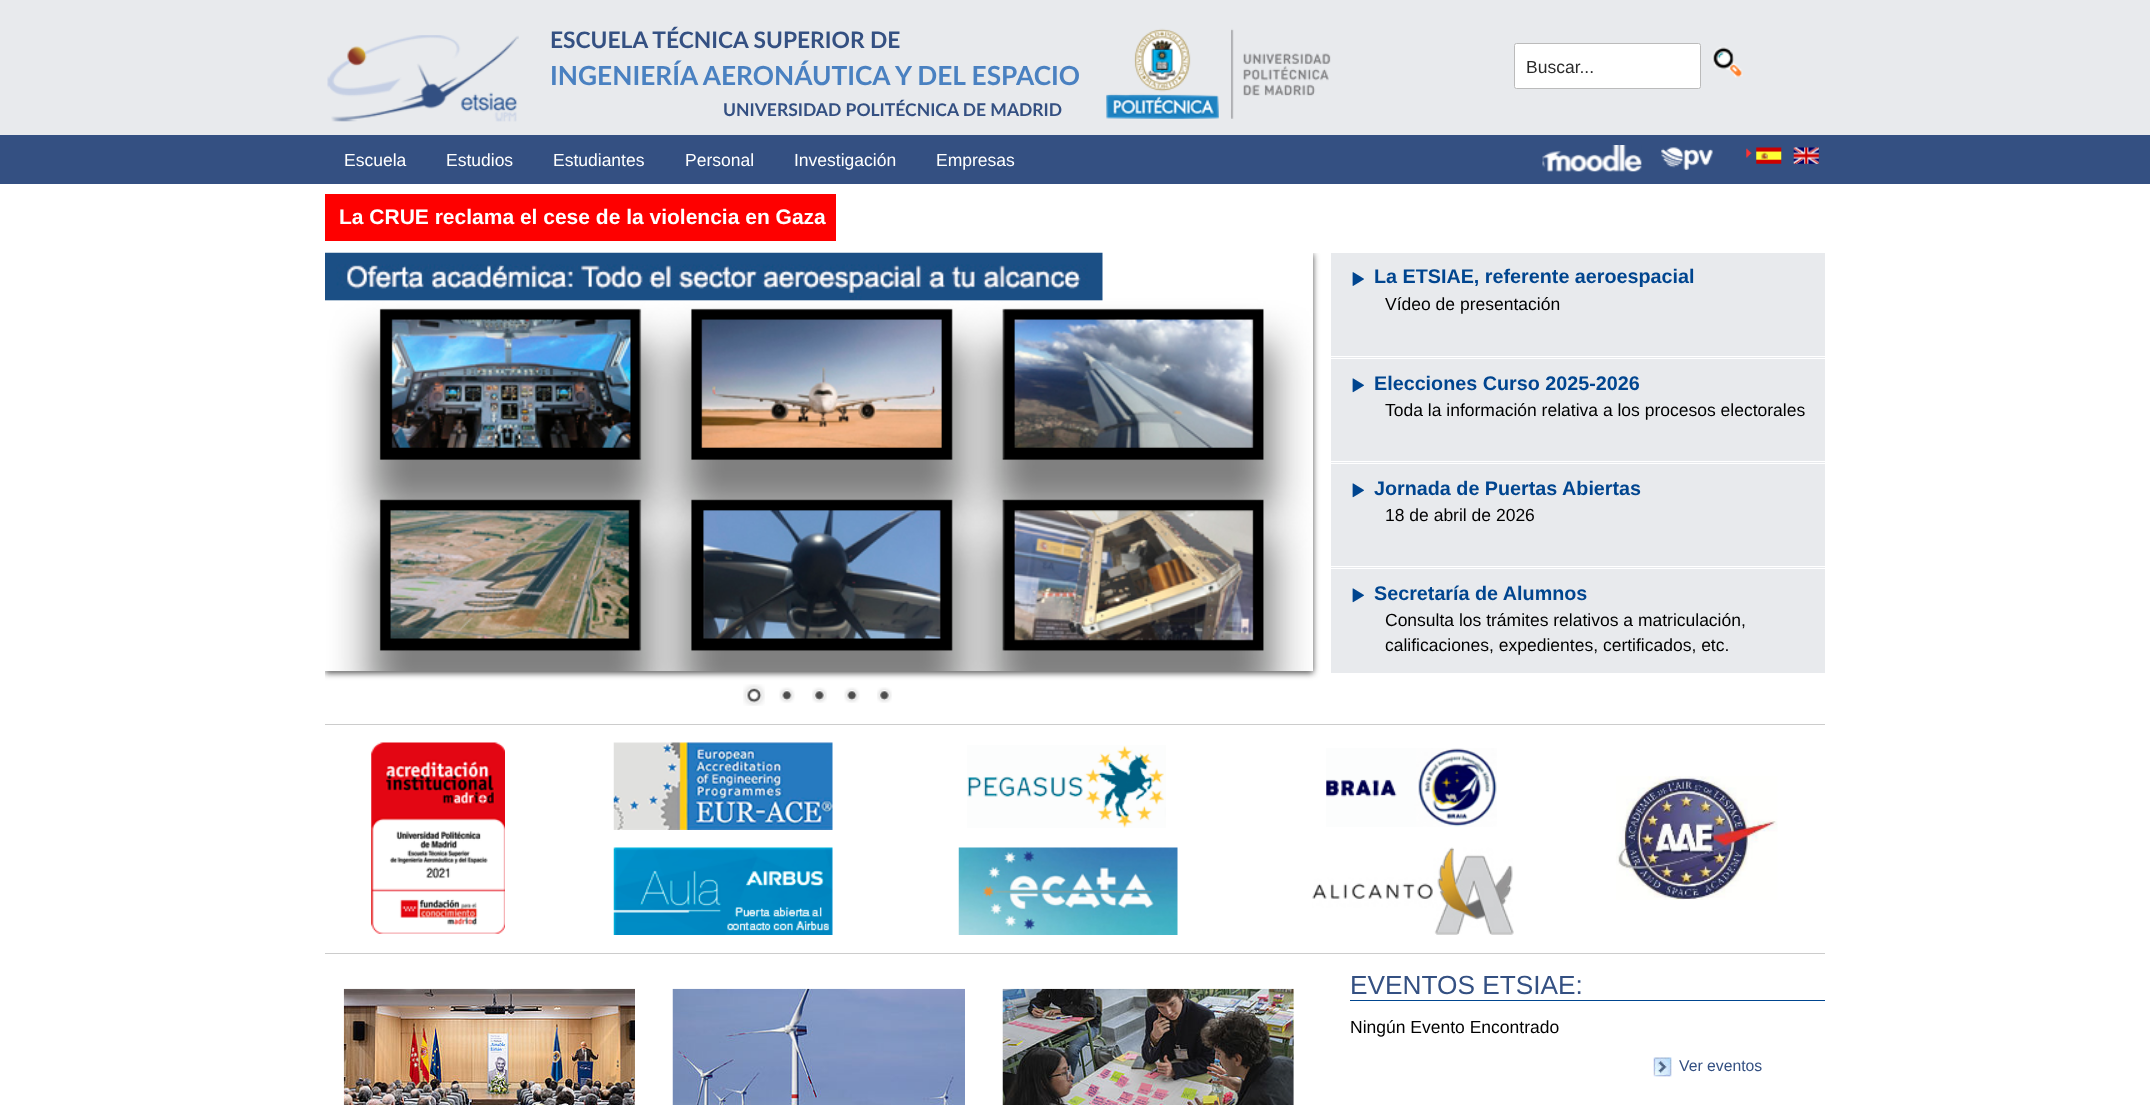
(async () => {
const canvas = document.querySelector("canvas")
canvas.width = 2150
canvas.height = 1105
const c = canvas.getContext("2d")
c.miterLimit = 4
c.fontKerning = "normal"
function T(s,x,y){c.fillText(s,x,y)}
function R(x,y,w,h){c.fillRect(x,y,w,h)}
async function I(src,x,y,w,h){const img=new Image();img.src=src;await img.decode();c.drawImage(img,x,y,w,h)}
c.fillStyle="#fff"
R(0,0,2150,1105)
c.fillStyle="#e8eaed"
R(0,0,2150,135)
await I("1.png",327,35,192,87)
c.font="bold 22.75px Lato"
c.fillStyle="#345082"
T("ESCUELA TÉCNICA SUPERIOR DE",550,48)
c.font="bold 26.25px Lato"
c.fillStyle="#4a81c1"
T("INGENIERÍA AERONÁUTICA Y DEL ESPACIO",550,85)
c.font="bold 17.5px Lato"
c.fillStyle="#345082"
T("UNIVERSIDAD POLITÉCNICA DE MADRID",723,116)
await I("2.png",1106,28,225,91)
c.fillStyle="#fff"
c.beginPath()
c.roundRect(1514.5,43.5,186,45,2)
c.fill()
c.strokeStyle="#bbb"
c.stroke()
c.font="17.5px Liberation Sans"
c.fillStyle="#2b2b2b"
T("Buscar...",1526,73)
await I("3.png",1711,46,32,32)
c.fillStyle="#345082"
R(0,135,2150,49)
c.fillStyle="#fff"
T("Escuela",344,166)
T("Estudios",446,166)
T("Estudiantes",553,166)
T("Personal",685,166)
T("Investigación",794,166)
T("Empresas",936,166)
await I("4.png",1542,145,100,27)
await I("5.png",1661,147,52,23)
await I("6.png",1746,148,6,10)
await I("7.png",1756,147,26,17)
await I("8.png",1793,147,26,17)
c.fillStyle="#fe0000"
R(325,194,511,47)
c.font="bold 21px Liberation Sans"
c.fillStyle="#fff"
T("La CRUE reclama el cese de la violencia en Gaza",339,224)
c.fillStyle="#ccc"
R(325,724,1500,1)
c.save()
c.beginPath()
c.rect(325,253,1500,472)
c.clip()
c.fillStyle="#4a4a4a"
c.filter="blur(3px)"
c.beginPath()
c.rect(325,254,988,419)
c.fill()
c.filter="none"
c.restore()
c.fillStyle="#fff"
R(1312,253,1,418)
await I("9.png",325,252,987,420)
await I("10.png",743,684,22,22)
await I("11.png",779,687,16,16)
await I("12.png",812,687,15,16)
await I("11.png",844,687,16,16)
await I("13.png",877,687,15,16)
c.fillStyle="#e8eaed"
R(1331,253,494,420)
c.fillStyle="#fff"
R(1331,356,494,1)
await I("14.png",1352,272,12,14)
c.font="bold 19.75px Liberation Sans"
c.fillStyle="#00458f"
T("La ETSIAE, referente aeroespacial",1374,283)
c.font="17.5px Liberation Sans"
c.fillStyle="#000"
T("Vídeo de presentación",1385,310)
c.fillStyle="#fff"
R(1331,358,494,1)
R(1331,461,494,1)
await I("15.png",1352,378,12,15)
c.font="bold 19.75px Liberation Sans"
c.fillStyle="#00458f"
T("Elecciones Curso 2025-2026",1374,390)
c.font="17.5px Liberation Sans"
c.fillStyle="#000"
T("Toda la información relativa a los procesos electorales",1385,416)
c.fillStyle="#fff"
R(1331,463,494,1)
R(1331,566,494,1)
await I("15.png",1352,483,12,15)
c.font="bold 19.75px Liberation Sans"
c.fillStyle="#00458f"
T("Jornada de Puertas Abiertas",1374,495)
c.font="17.5px Liberation Sans"
c.fillStyle="#000"
T("18 de abril de 2026",1385,521)
c.fillStyle="#fff"
R(1331,568,494,1)
await I("15.png",1352,588,12,15)
c.font="bold 19.75px Liberation Sans"
c.fillStyle="#00458f"
T("Secretaría de Alumnos",1374,600)
c.font="17.5px Liberation Sans"
c.fillStyle="#000"
T("Consulta los trámites relativos a matriculación,",1385,626)
T("calificaciones, expedientes, certificados, etc.",1385,651)
await I("16.png",371,742,134,192)
await I("17.png",613,742,220,88)
await I("18.png",613,847,220,88)
await I("19.png",967,745,199,83)
await I("20.png",958,847,220,88)
await I("21.png",1326,748,171,79)
await I("22.png",1312,847,202,88)
await I("23.png",1616,776,162,124)
c.fillStyle="#ccc"
R(325,953,1500,1)
await I("24.png",343,988,292,117)
await I("25.png",672,988,293,117)
await I("26.png",1002,988,292,117)
c.fillStyle="#00458f"
R(1350,1000,475,1)
c.font="26.25px Liberation Sans"
c.fillStyle="#345082"
T("EVENTOS ETSIAE:",1350,994)
c.font="17.5px Liberation Sans"
c.fillStyle="#000"
T("Ningún Evento Encontrado",1350,1033)
await I("27.png",1653,1057,19,20)
c.font="15.75px Liberation Sans"
c.fillStyle="#345082"
T("Ver eventos",1679,1071)
})()
